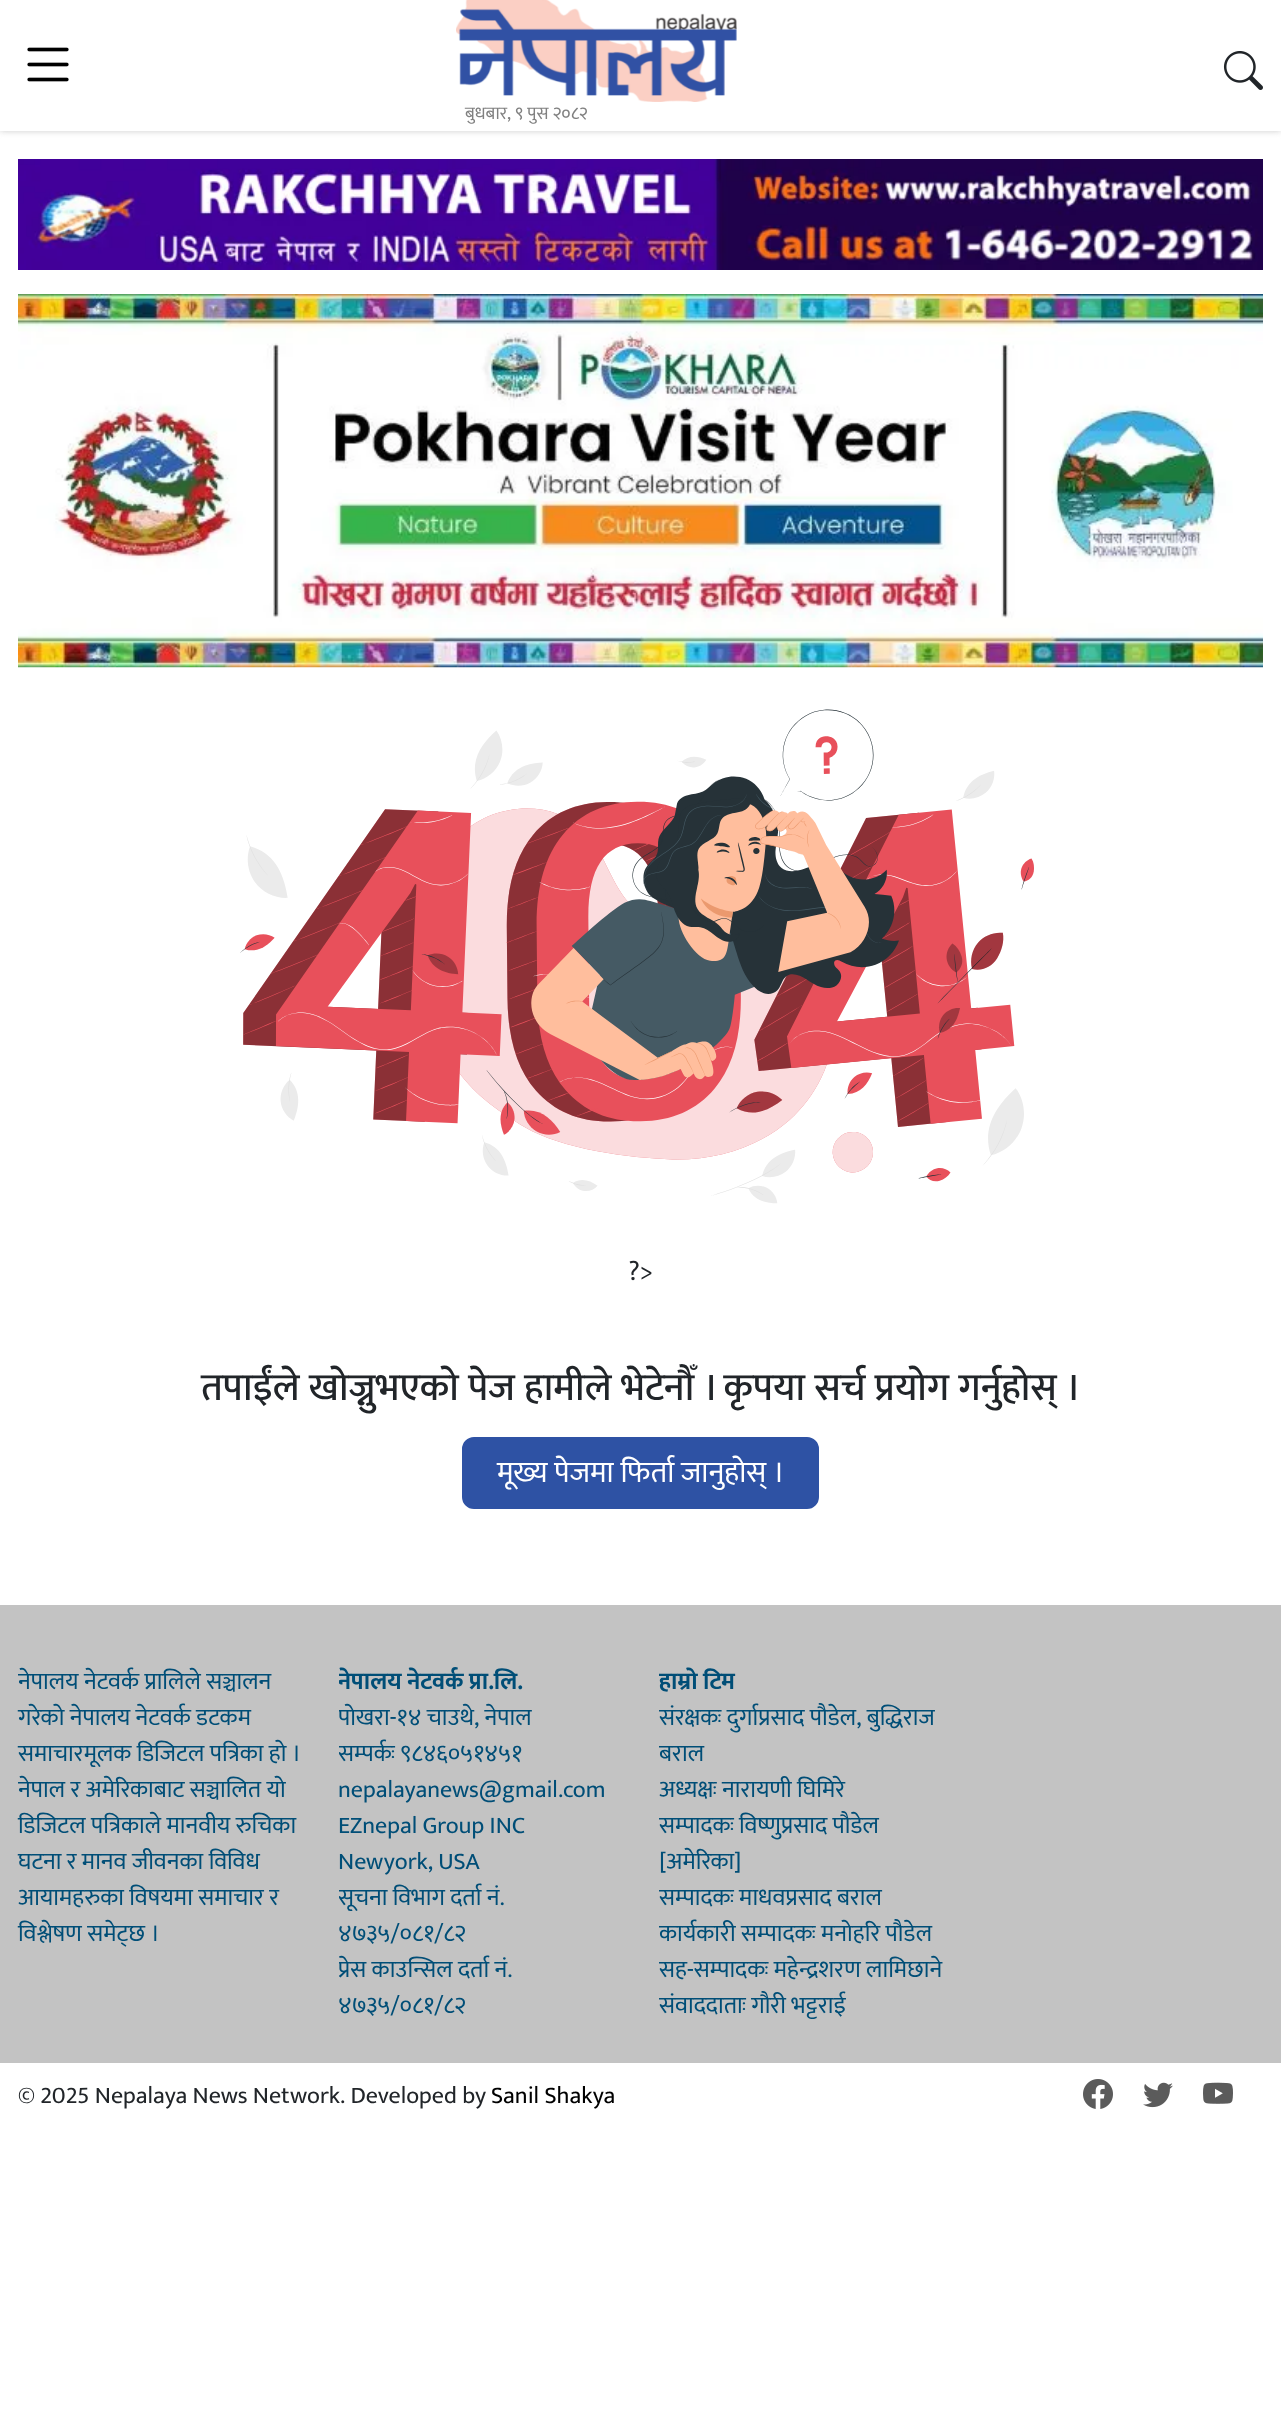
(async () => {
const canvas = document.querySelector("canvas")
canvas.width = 1281
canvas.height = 2417
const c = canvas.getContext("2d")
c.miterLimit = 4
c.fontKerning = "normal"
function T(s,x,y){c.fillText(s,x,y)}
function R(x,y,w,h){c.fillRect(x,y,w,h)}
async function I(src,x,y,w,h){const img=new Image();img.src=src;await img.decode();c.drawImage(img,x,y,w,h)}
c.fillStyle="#fff"
R(0,0,1281,2417)
c.fillStyle="#ccc"
c.filter="blur(3px)"
c.beginPath()
c.rect(0,0,1281,131)
c.fill()
c.filter="none"
c.fillStyle="#fff"
R(0,0,1281,131)
await I("1.png",27,47,42,35)
await I("2.png",1223,51,40,39)
await I("3.png",456,0,281,102)
c.font="18px Mukta"
c.fillStyle="#808080"
T("बुधबार, ९ पुस २०८२",465,119)
await I("4.png",18,159,1245,111)
await I("5.png",18,294,1245,374)
await I("6.png",240,709,794,495)
c.font="27px Mukta"
c.fillStyle="#212529"
T("?>",628,1280)
c.wordSpacing="0.5px"
c.font="500 38.9px Mukta"
T("तपाईंले खोज्नुभएको पेज हामीले भेटेनौँ । कृपया सर्च प्रयोग गर्नुहोस् ।",201,1400)
c.fillStyle="#2e52a4"
c.beginPath()
c.roundRect(463,1438,355,70,11)
c.fill()
c.strokeStyle="#2e52a4"
c.lineWidth=2
c.stroke()
c.wordSpacing="0px"
c.font="30px Mukta"
c.fillStyle="#fff"
T("मूख्य पेजमा फिर्ता जानुहोस् ।",497,1482)
c.fillStyle="#c3c3c3"
R(0,1605,1281,458)
c.save()
c.beginPath()
c.rect(18,1665,285,303)
c.clip()
c.font="24px Mukta"
c.fillStyle="#004e77"
T("नेपालय नेटवर्क प्रालिले सञ्चालन",18,1689)
c.restore()
c.font="24px Mukta"
c.fillStyle="#004e77"
T("गरेको नेपालय नेटवर्क डटकम",18,1725)
T("समाचारमूलक डिजिटल पत्रिका हो ।",18,1761)
c.save()
c.beginPath()
c.rect(18,1665,285,303)
c.clip()
T("नेपाल र अमेरिकाबाट सञ्चालित यो",18,1797)
c.restore()
T("डिजिटल पत्रिकाले मानवीय रुचिका",18,1833)
T("घटना र मानव जीवनका विविध",18,1869)
T("आयामहरुका विषयमा समाचार र",18,1905)
T("विश्लेषण समेट्छ ।",18,1941)
c.save()
c.beginPath()
c.rect(339,1665,284,144)
c.clip()
c.font="bold 24px Mukta"
T("नेपालय नेटवर्क प्रा.लि.",338,1689)
c.font="24px Mukta"
T("पोखरा-१४ चाउथे, नेपाल",338,1725)
T("सम्पर्कः ९८४६०५१४५१",338,1761)
c.restore()
T("nepalayanews@gmail.com",338,1797)
T("EZnepal Group INC",338,1833)
T("Newyork, USA",338,1869)
c.save()
c.beginPath()
c.rect(339,1881,284,144)
c.clip()
T("सूचना विभाग दर्ता नं.",338,1905)
c.restore()
T("४७३५/०८१/८२",338,1941)
c.save()
c.beginPath()
c.rect(339,1881,284,144)
c.clip()
T("प्रेस काउन्सिल दर्ता नं.",338,1977)
c.restore()
T("४७३५/०८१/८२",338,2013)
c.save()
c.beginPath()
c.rect(659,1665,285,36)
c.clip()
c.font="bold 24px Mukta"
T("हाम्रो टिम",659,1689)
c.restore()
c.save()
c.beginPath()
c.rect(659,1701,285,324)
c.clip()
T("संरक्षकः दुर्गाप्रसाद पौडेल, बुद्धिराज",659,1725)
T("बराल",659,1761)
c.restore()
T("अध्यक्षः नारायणी घिमिरे",659,1797)
c.save()
c.beginPath()
c.rect(659,1701,285,324)
c.clip()
T("सम्पादकः विष्णुप्रसाद पौडेल",659,1833)
c.restore()
T("[अमेरिका]",659,1869)
c.save()
c.beginPath()
c.rect(659,1701,285,324)
c.clip()
T("सम्पादकः माधवप्रसाद बराल",659,1905)
T("कार्यकारी सम्पादकः मनोहरि पौडेल",659,1941)
T("सह-सम्पादकः महेन्द्रशरण लामिछाने",659,1977)
T("संवाददाताः गौरी भट्टराई",659,2013)
c.restore()
c.fillStyle="#212529"
T("© 2025 Nepalaya News Network. Developed by",18,2103)
c.fillStyle="#000"
T("Sanil Shakya",491,2103)
await I("7.png",1083,2079,30,30)
await I("8.png",1143,2082,30,26)
await I("9.png",1203,2082,30,22)
})()
